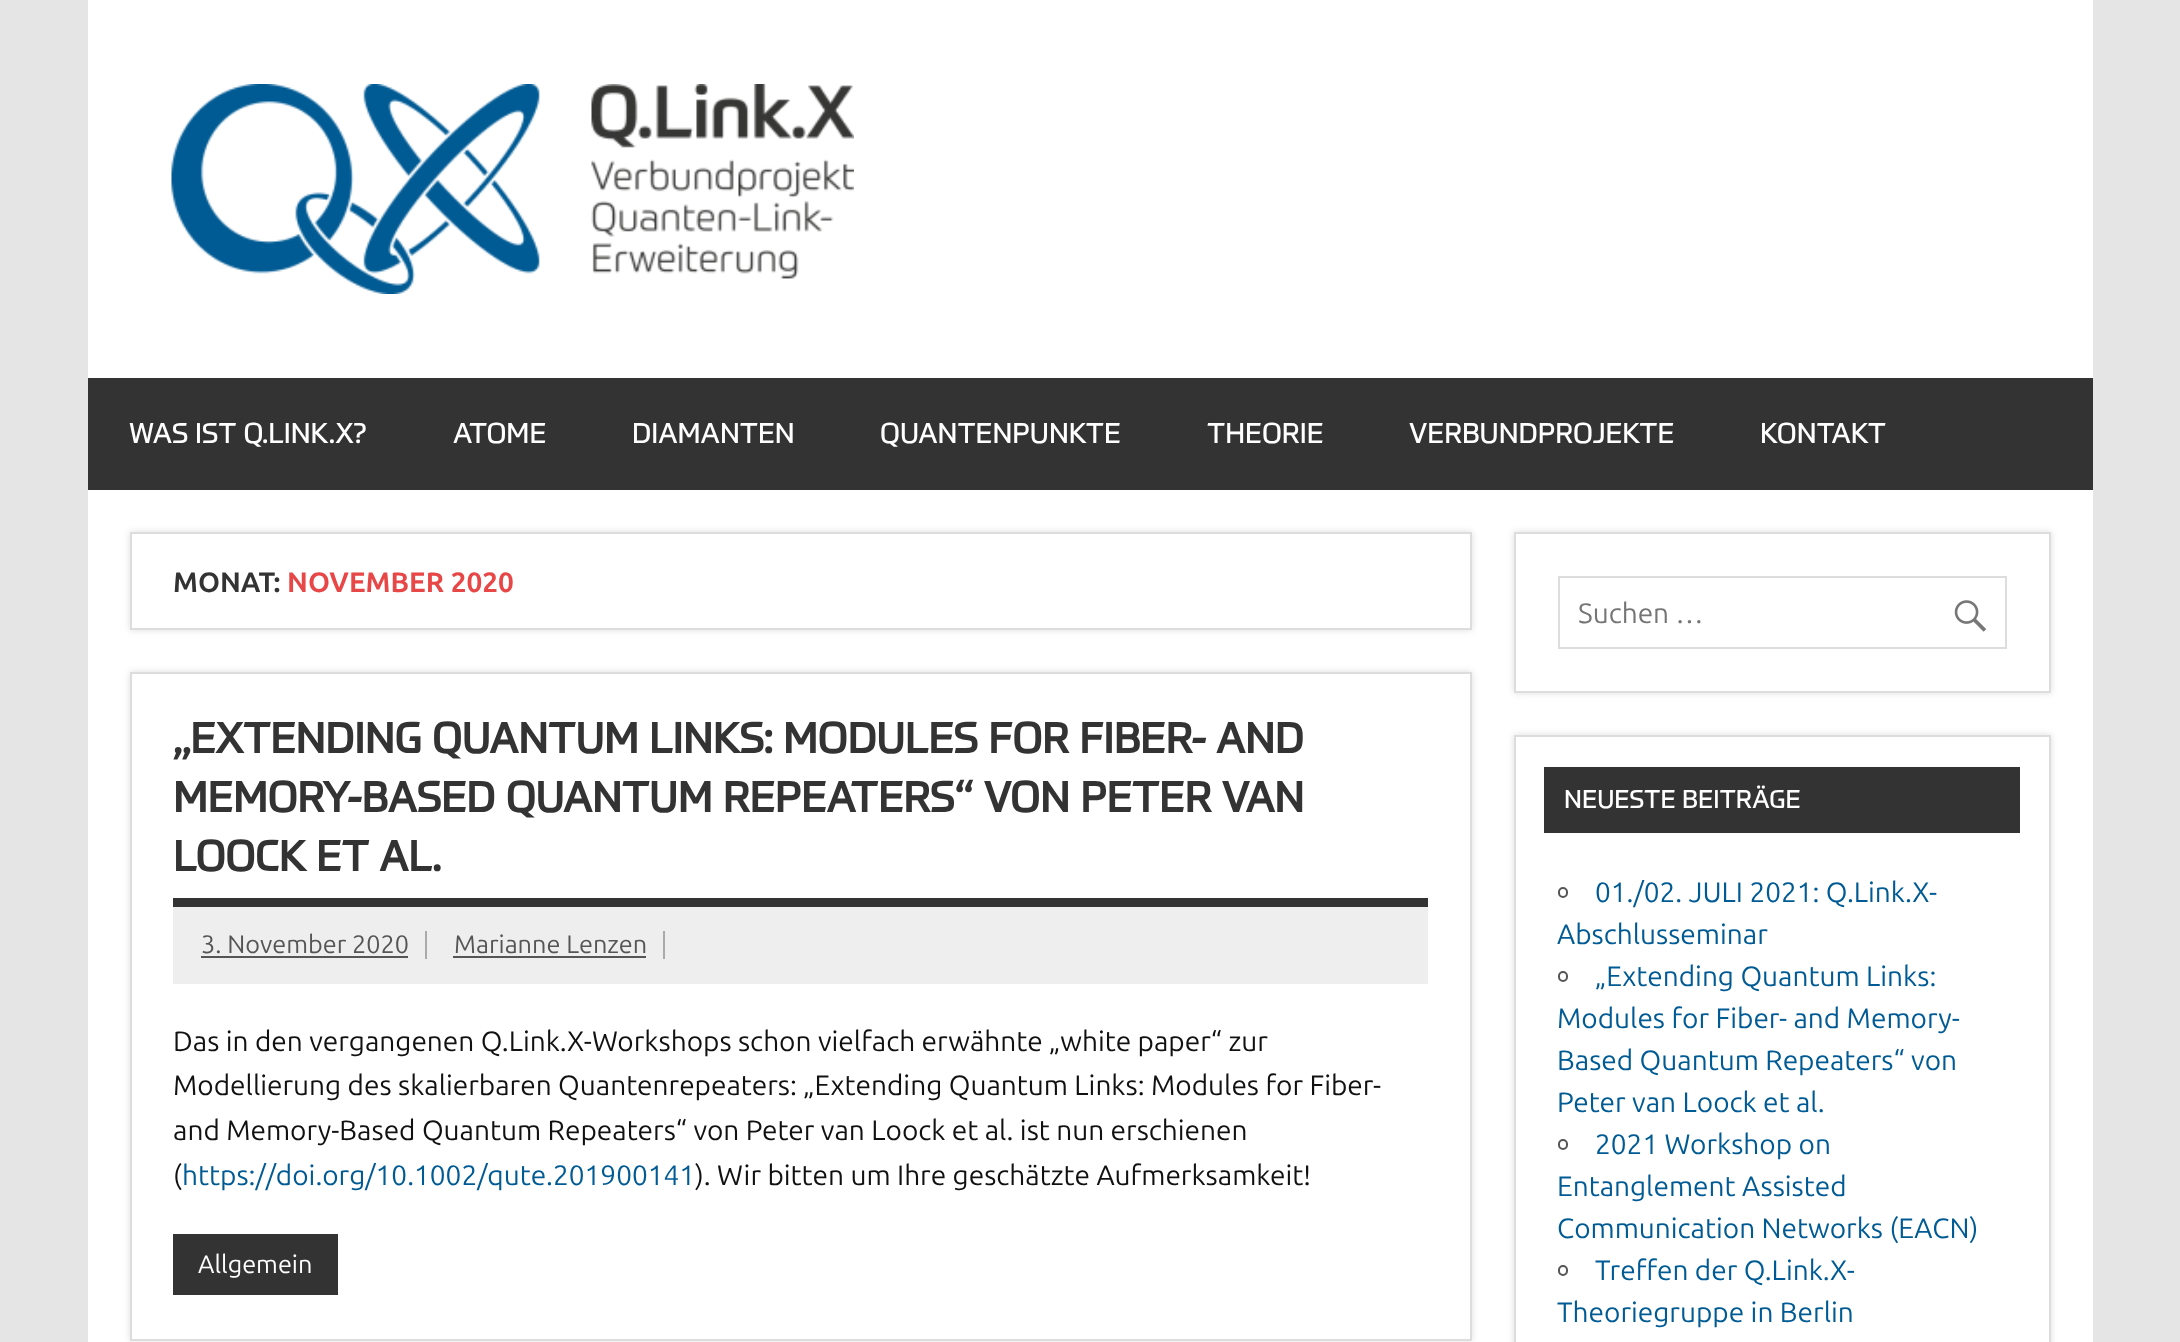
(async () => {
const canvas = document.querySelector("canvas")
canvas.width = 2180
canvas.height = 1342
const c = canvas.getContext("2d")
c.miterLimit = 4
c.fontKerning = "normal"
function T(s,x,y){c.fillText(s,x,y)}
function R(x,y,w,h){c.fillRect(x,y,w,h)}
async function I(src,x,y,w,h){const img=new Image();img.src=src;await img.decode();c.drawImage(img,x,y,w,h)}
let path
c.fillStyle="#e5e5e5"
R(0,0,2180,1342)
c.fillStyle="#fff"
R(88,0,2005,1342)
await I("1.png",171,84,683,210)
c.fillStyle="#333"
R(88,378,2005,112)
c.font="28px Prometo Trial"
c.fillStyle="#fff"
T("WAS IST Q.LINK.X?",129,443)
T("ATOME",453,443)
T("DIAMANTEN",632,443)
T("QUANTENPUNKTE",880,443)
T("THEORIE",1207,443)
T("VERBUNDPROJEKTE",1409,443)
T("KONTAKT",1760,443)
c.fillStyle="#ddd"
c.filter="blur(3.5px)"
c.beginPath()
c.rect(130,532,1342,98)
c.fill()
c.filter="none"
c.fillStyle="#fff"
c.beginPath()
c.rect(131,533,1340,96)
c.fill()
c.strokeStyle="#ddd"
c.lineWidth=2
c.stroke()
c.font="bold 28px Ubuntu"
c.fillStyle="#333"
T("MONAT:",173,592)
c.fillStyle="#e84747"
T("NOVEMBER 2020",287,592)
c.fillStyle="#ddd"
c.filter="blur(3.5px)"
c.beginPath()
c.rect(130,672,1342,669)
c.fill()
c.filter="none"
c.fillStyle="#fff"
c.beginPath()
c.rect(131,673,1340,667)
c.fill()
c.stroke()
c.fillStyle="#333"
R(173,898,1255,9)
c.font="bold 42px Prometo Trial"
T("„EXTENDING QUANTUM LINKS: MODULES FOR FIBER- AND",173,753)
T("MEMORY-BASED QUANTUM REPEATERS“ VON PETER VAN",173,812)
T("LOOCK ET AL.",173,871)
c.fillStyle="#eee"
R(173,907,1255,77)
c.font="25.25px Ubuntu"
c.fillStyle="#555"
T("3. November 2020",201,953)
c.fillStyle="#aaa"
R(425,931,2,28)
c.fillStyle="#555"
R(201,956,207,2)
T("Marianne Lenzen",454,953)
c.fillStyle="#aaa"
R(663,931,2,28)
c.fillStyle="#555"
R(453,956,193,2)
c.font="28px Ubuntu"
c.fillStyle="#111"
T("Das in den vergangenen Q.Link.X-Workshops schon vielfach erwähnte „white paper“ zur",173,1051)
T("Modellierung des skalierbaren Quantenrepeaters: „Extending Quantum Links: Modules for Fiber-",173,1095)
T("and Memory-Based Quantum Repeaters“ von Peter van Loock et al. ist nun erschienen",173,1140)
T("(",173,1185)
c.fillStyle="#005b94"
T("https://doi.org/10.1002/qute.201900141",182,1185)
c.fillStyle="#111"
T("). Wir bitten um Ihre geschätzte Aufmerksamkeit!",695,1185)
c.fillStyle="#333"
R(173,1234,165,61)
c.font="25.25px Ubuntu"
c.fillStyle="#fff"
T("Allgemein",198,1273)
c.save()
path = new Path2D("M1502 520h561v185h-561zm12 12h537v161h-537z")
c.clip(path,"evenodd")
c.fillStyle="#ddd"
c.filter="blur(3.5px)"
c.beginPath()
c.rect(1514,532,537,161)
c.fill()
c.filter="none"
c.restore()
c.strokeRect(1515,533,535,159)
c.strokeRect(1559,577,447,71)
c.font="28px Ubuntu"
c.fillStyle="#757575"
T("Suchen …",1578,623)
await I("2.png",1954,600,33,32)
c.save()
path = new Path2D("M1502 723h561v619h-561zm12 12h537v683h-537z")
c.clip(path,"evenodd")
c.fillStyle="#ddd"
c.filter="blur(3.5px)"
c.beginPath()
c.rect(1514,735,537,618)
c.fill()
c.filter="none"
c.restore()
c.strokeRect(1515,736,535,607)
c.fillStyle="#333"
R(1544,767,476,66)
c.font="25.25px Prometo Trial"
c.fillStyle="#fff"
T("NEUESTE BEITRÄGE",1564,808)
c.beginPath()
c.roundRect(1559,888,8,9,4)
c.strokeStyle="#555"
c.stroke()
c.font="28px Ubuntu"
c.fillStyle="#005b94"
T("01./02. JULI 2021: Q.Link.X-",1595,902)
T("Abschlusseminar",1557,944)
c.beginPath()
c.roundRect(1559,972,8,9,4)
c.stroke()
T("„Extending Quantum Links:",1595,986)
T("Modules for Fiber- and Memory-",1557,1028)
T("Based Quantum Repeaters“ von",1557,1070)
T("Peter van Loock et al.",1557,1112)
c.beginPath()
c.roundRect(1559,1140,8,9,4)
c.stroke()
T("2021 Workshop on",1595,1154)
T("Entanglement Assisted",1557,1196)
T("Communication Networks (EACN)",1557,1238)
c.beginPath()
c.roundRect(1559,1266,8,9,4)
c.stroke()
T("Treffen der Q.Link.X-",1595,1280)
T("Theoriegruppe in Berlin",1557,1322)
})()
